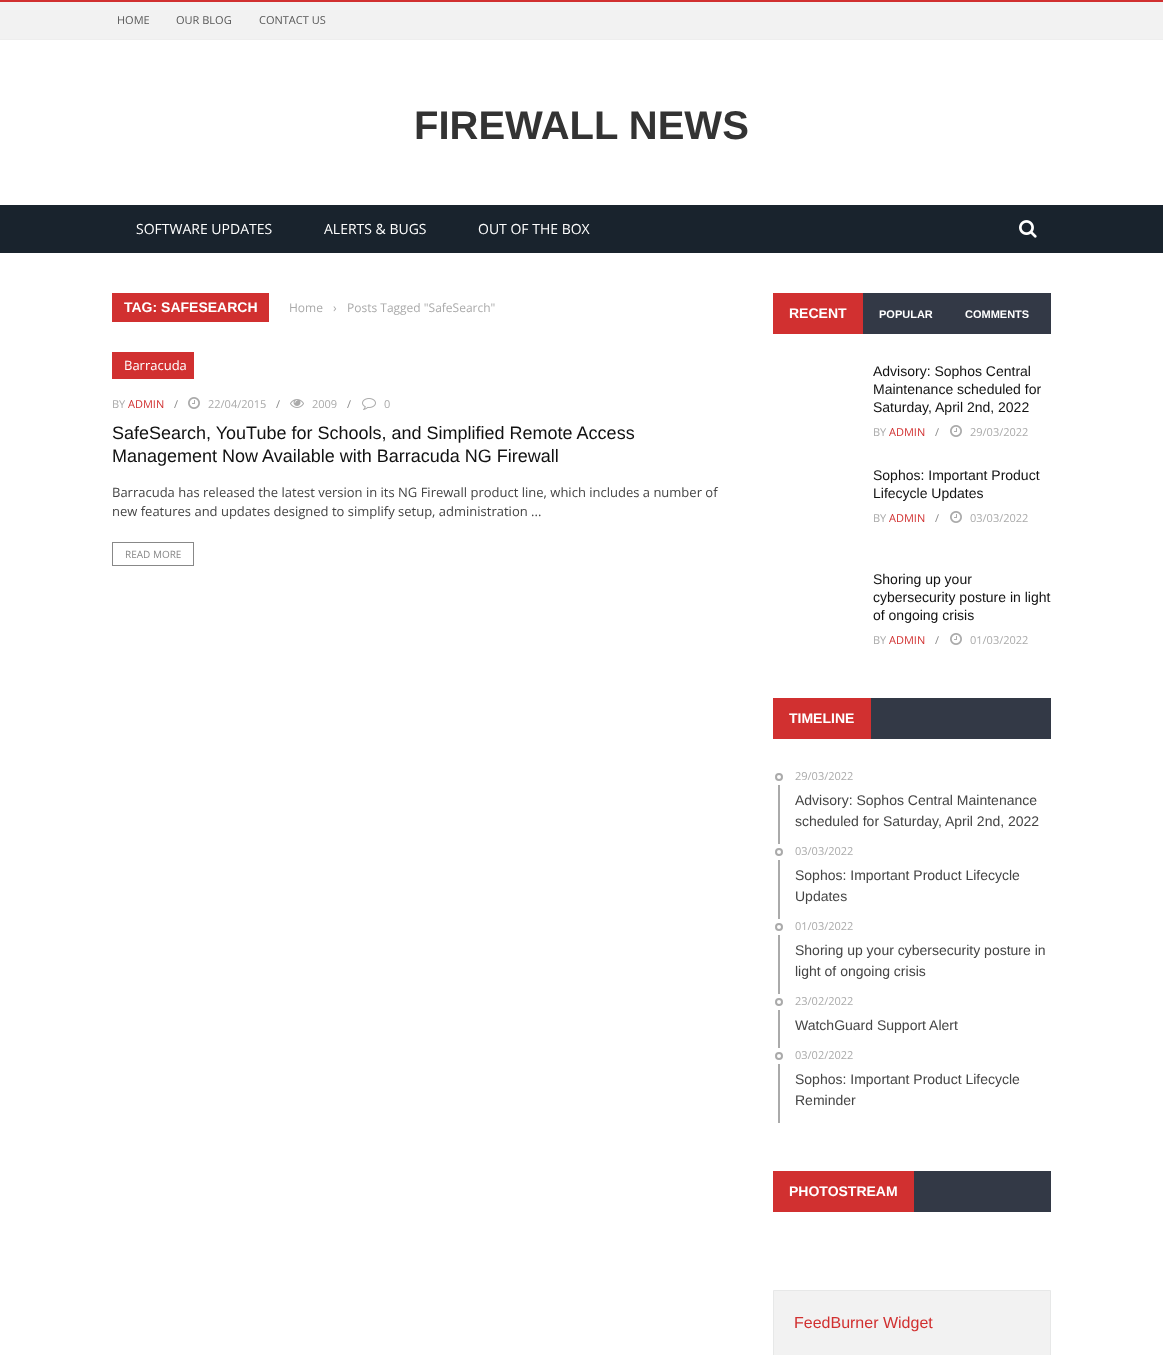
(async () => {
const canvas = document.querySelector("canvas")
canvas.width = 1163
canvas.height = 1355
const c = canvas.getContext("2d")
c.miterLimit = 4
c.fontKerning = "normal"
function T(s,x,y){c.fillText(s,x,y)}
function R(x,y,w,h){c.fillRect(x,y,w,h)}
async function I(src,x,y,w,h){const img=new Image();img.src=src;await img.decode();c.drawImage(img,x,y,w,h)}
c.fillStyle="#fff"
R(0,0,1163,1355)
c.fillStyle="#f2f2f2"
R(0,2,1163,37)
c.fillStyle="#d13030"
R(0,0,1163,2)
c.fillStyle="#eee"
R(0,39,1163,1)
c.font="11px Open Sans"
c.fillStyle="#565656"
T("HOME",117,24)
T("OUR BLOG",176,24)
T("CONTACT US",259,24)
c.font="bold 40px Liberation Sans"
c.fillStyle="#333"
T("FIREWALL NEWS",414,139)
c.fillStyle="#19232d"
R(0,205,1163,48)
c.font="14px Open Sans"
c.fillStyle="#fff"
T("SOFTWARE UPDATES",136,234)
T("ALERTS & BUGS",324,234)
T("OUT OF THE BOX",478,234)
await I("1.png",1019,220,18,18)
c.fillStyle="#d13030"
R(112,293,157,29)
c.font="bold 14px Liberation Sans"
c.fillStyle="#fff"
T("TAG: SAFESEARCH",124,312)
c.font="12px Open Sans"
c.fillStyle="#aaa"
T("Home",289,312)
T("›",333,312)
T("Posts Tagged \"SafeSearch\"",347,312)
c.fillStyle="#d13030"
R(112,352,82,27)
c.font="13px Open Sans"
c.fillStyle="#fff"
T("Barracuda",124,370)
c.font="11px Open Sans"
c.fillStyle="#aaa"
T("BY",112,408)
c.fillStyle="#d13030"
T("ADMIN",128,408)
c.fillStyle="#888"
T("/",174,408)
await I("2.png",188,397,12,12)
c.fillStyle="#aaa"
T("22/04/2015",208,408)
c.fillStyle="#888"
T("/",276,408)
await I("3.png",290,399,14,9)
c.fillStyle="#aaa"
T("2009",312,408)
c.fillStyle="#888"
T("/",347,408)
await I("4.png",362,398,14,12)
c.fillStyle="#aaa"
T("0",384,408)
c.font="18px Liberation Sans"
c.fillStyle="#111"
T("SafeSearch, YouTube for Schools, and Simplified Remote Access",112,439)
T("Management Now Available with Barracuda NG Firewall",112,462)
c.font="13px Open Sans"
c.fillStyle="#444"
T("Barracuda has released the latest version in its NG Firewall product line, which includes a number of",112,497)
T("new features and updates designed to simplify setup, administration ...",112,516)
c.strokeStyle="#888"
c.strokeRect(112.5,542.5,81,23)
c.font="10px Open Sans"
c.fillStyle="#888"
T("READ MORE",125,558)
c.fillStyle="#333946"
R(863,293,188,41)
c.fillStyle="#d13030"
R(773,293,90,41)
c.font="bold 14px Liberation Sans"
c.fillStyle="#fff"
T("RECENT",789,318)
c.font="bold 11px Liberation Sans"
T("POPULAR",879,318)
T("COMMENTS",965,318)
c.font="14px Liberation Sans"
c.fillStyle="#111"
T("Advisory: Sophos Central",873,376)
T("Maintenance scheduled for",873,394)
T("Saturday, April 2nd, 2022",873,412)
c.font="11px Open Sans"
c.fillStyle="#aaa"
T("BY",873,436)
c.fillStyle="#d13030"
T("ADMIN",889,436)
c.fillStyle="#888"
T("/",935,436)
await I("2.png",950,425,12,12)
c.fillStyle="#aaa"
T("29/03/2022",970,436)
c.font="14px Liberation Sans"
c.fillStyle="#111"
T("Sophos: Important Product",873,480)
T("Lifecycle Updates",873,498)
c.font="11px Open Sans"
c.fillStyle="#aaa"
T("BY",873,522)
c.fillStyle="#d13030"
T("ADMIN",889,522)
c.fillStyle="#888"
T("/",935,522)
await I("2.png",950,511,12,12)
c.fillStyle="#aaa"
T("03/03/2022",970,522)
c.font="14px Liberation Sans"
c.fillStyle="#111"
T("Shoring up your",873,584)
T("cybersecurity posture in light",873,602)
T("of ongoing crisis",873,620)
c.font="11px Open Sans"
c.fillStyle="#aaa"
T("BY",873,644)
c.fillStyle="#d13030"
T("ADMIN",889,644)
c.fillStyle="#888"
T("/",935,644)
await I("2.png",950,633,12,12)
c.fillStyle="#aaa"
T("01/03/2022",970,644)
c.fillStyle="#333946"
R(871,698,180,41)
c.fillStyle="#d13030"
R(773,698,98,41)
c.font="bold 14px Liberation Sans"
c.fillStyle="#fff"
T("TIMELINE",789,723)
c.beginPath()
c.arc(779,777,3,0,7)
c.strokeStyle="#aaa"
c.lineWidth=2
c.stroke()
c.font="11px Open Sans"
c.fillStyle="#aaa"
T("29/03/2022",795,780)
R(778,785,2,59)
c.font="14px Liberation Sans"
c.fillStyle="#444"
T("Advisory: Sophos Central Maintenance",795,805)
T("scheduled for Saturday, April 2nd, 2022",795,826)
c.beginPath()
c.arc(779,852,3,0,7)
c.stroke()
c.font="11px Open Sans"
c.fillStyle="#aaa"
T("03/03/2022",795,855)
R(778,860,2,59)
c.font="14px Liberation Sans"
c.fillStyle="#444"
T("Sophos: Important Product Lifecycle",795,880)
T("Updates",795,901)
c.beginPath()
c.arc(779,927,3,0,7)
c.stroke()
c.font="11px Open Sans"
c.fillStyle="#aaa"
T("01/03/2022",795,930)
R(778,935,2,59)
c.font="14px Liberation Sans"
c.fillStyle="#444"
T("Shoring up your cybersecurity posture in",795,955)
T("light of ongoing crisis",795,976)
c.beginPath()
c.arc(779,1002,3,0,7)
c.stroke()
c.font="11px Open Sans"
c.fillStyle="#aaa"
T("23/02/2022",795,1005)
R(778,1010,2,38)
c.font="14px Liberation Sans"
c.fillStyle="#444"
T("WatchGuard Support Alert",795,1030)
c.beginPath()
c.arc(779,1056,3,0,7)
c.stroke()
c.font="11px Open Sans"
c.fillStyle="#aaa"
T("03/02/2022",795,1059)
R(778,1064,2,59)
c.font="14px Liberation Sans"
c.fillStyle="#444"
T("Sophos: Important Product Lifecycle",795,1084)
T("Reminder",795,1105)
c.fillStyle="#333946"
R(914,1171,137,41)
c.fillStyle="#d13030"
R(773,1171,141,41)
c.font="bold 14px Liberation Sans"
c.fillStyle="#fff"
T("PHOTOSTREAM",789,1196)
c.fillStyle="#f2f2f2"
c.beginPath()
c.rect(773.5,1290.5,277,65)
c.fill()
c.strokeStyle="#e7e8e8"
c.lineWidth=1
c.stroke()
c.font="16px Liberation Sans"
c.fillStyle="#d13030"
T("FeedBurner Widget",794,1328)
})()
